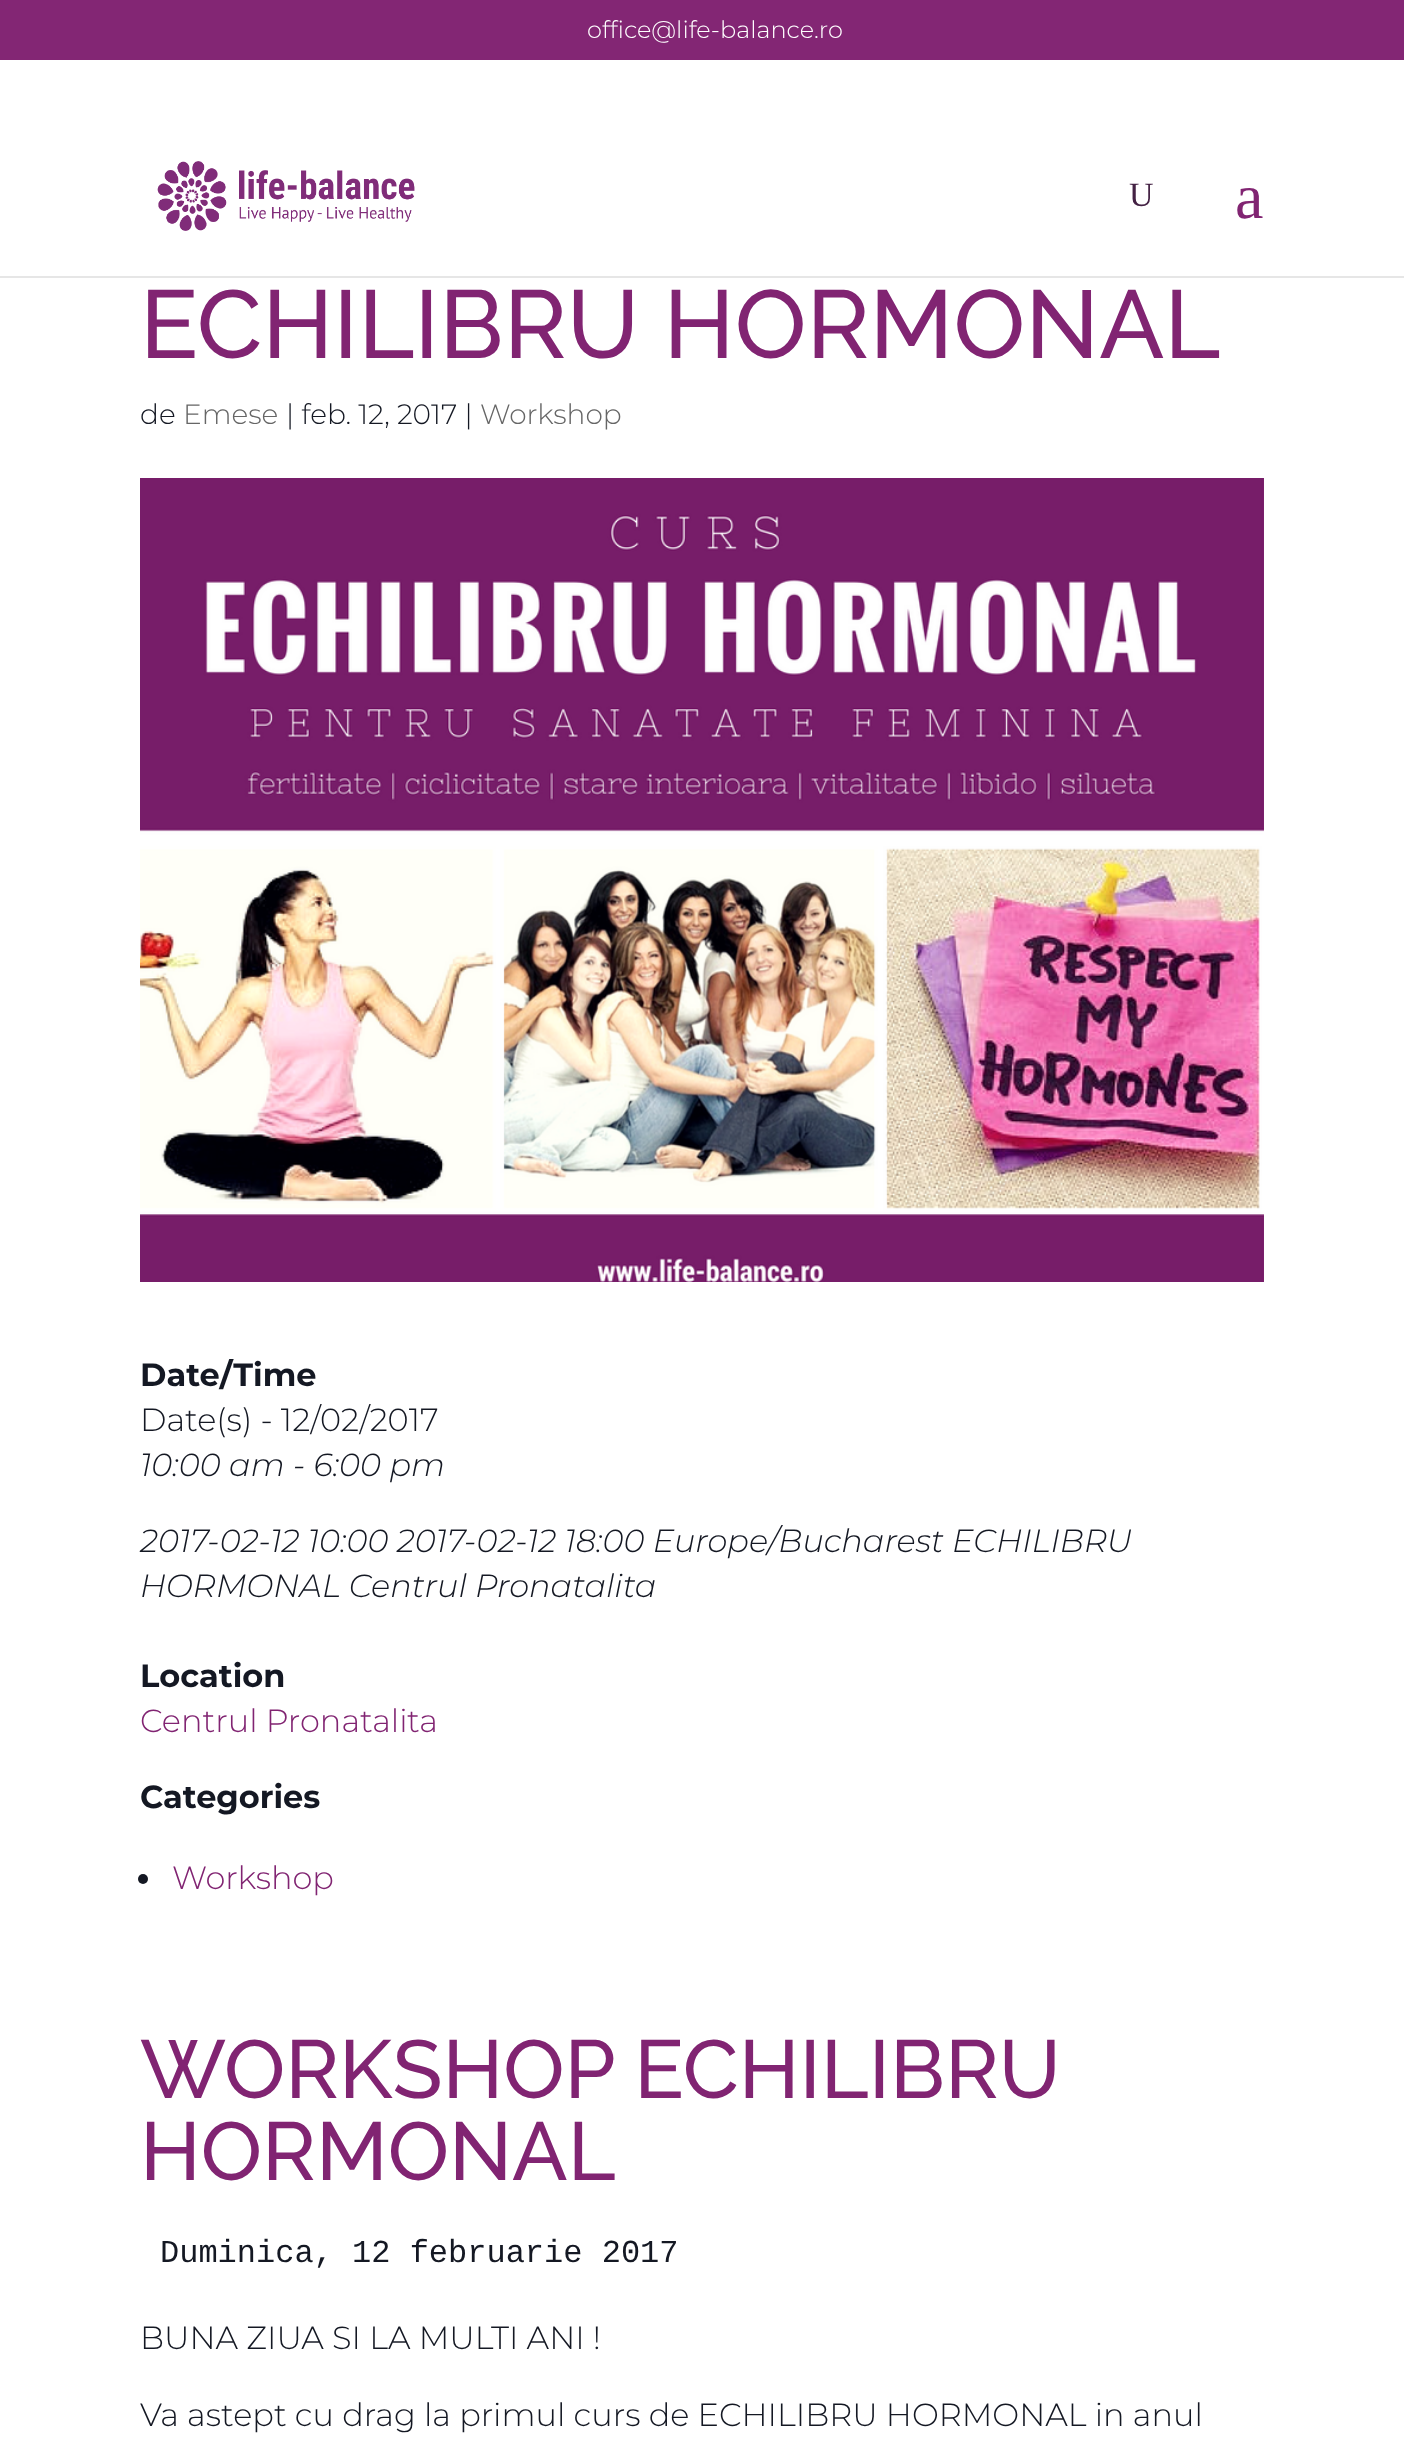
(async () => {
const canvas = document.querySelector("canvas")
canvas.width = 1404
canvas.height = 2456
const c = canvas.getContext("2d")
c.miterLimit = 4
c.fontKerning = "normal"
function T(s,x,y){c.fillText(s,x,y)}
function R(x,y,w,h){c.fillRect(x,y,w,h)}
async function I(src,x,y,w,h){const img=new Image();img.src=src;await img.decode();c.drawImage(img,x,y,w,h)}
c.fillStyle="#fff"
R(0,0,1404,2456)
c.fillStyle="#832674"
R(0,0,1404,60)
c.font="300 24px Montserrat"
c.fillStyle="#fff"
T("office@life-balance.ro",587,38)
c.fillStyle="#e6e6e6"
R(0,276,1404,2)
await I("1.png",157,161,258,70)
c.font="34px Liberation Serif"
c.fillStyle="#424"
T("U",1129,206)
c.font="64px Liberation Serif"
c.fillStyle="#812472"
T("a",1235,218)
c.font="500 96px Raleway"
T("ECHILIBRU HORMONAL",140,358)
c.font="300 28px Montserrat"
c.fillStyle="#141823"
T("de",140,424)
c.fillStyle="#666"
T("Emese",183,424)
c.fillStyle="#141823"
T("| feb. 12, 2017 |",286,424)
c.fillStyle="#666"
T("Workshop",480,424)
await I("2.png",140,478,1124,804)
c.font="bold 32px Montserrat"
c.fillStyle="#141823"
T("Date/Time",140,1386)
c.font="300 32px Montserrat"
T("Date(s) - 12/02/2017",140,1431)
c.font="italic 300 32px Montserrat"
T("10:00 am - 6:00 pm",140,1476)
T("2017-02-12 10:00 2017-02-12 18:00 Europe/Bucharest ECHILIBRU",140,1552)
T("HORMONAL Centrul Pronatalita",140,1597)
c.font="bold 32px Montserrat"
T("Location",140,1687)
c.font="300 32px Montserrat"
c.fillStyle="#812472"
T("Centrul Pronatalita",140,1732)
c.font="bold 32px Montserrat"
c.fillStyle="#141823"
T("Categories",140,1808)
c.beginPath()
c.arc(143,1879,5,0,7)
c.fill()
c.font="300 32px Montserrat"
c.fillStyle="#812472"
T("Workshop",172,1889)
c.font="500 82px Raleway"
T("WORKSHOP ECHILIBRU",140,2098)
T("HORMONAL",140,2180)
c.font="32px Liberation Mono"
c.fillStyle="#141823"
T("Duminica, 12 februarie 2017",160,2262)
c.font="300 32px Montserrat"
T("BUNA ZIUA SI LA MULTI ANI !",140,2349)
T("Va astept cu drag la primul curs de ECHILIBRU HORMONAL in anul",140,2426)
})()
